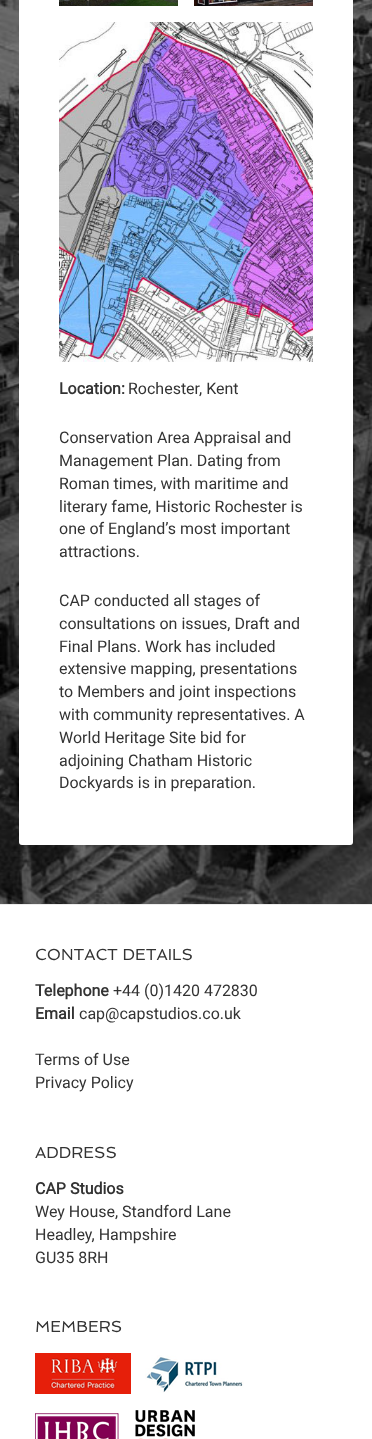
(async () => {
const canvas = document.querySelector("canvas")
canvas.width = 372
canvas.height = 1439
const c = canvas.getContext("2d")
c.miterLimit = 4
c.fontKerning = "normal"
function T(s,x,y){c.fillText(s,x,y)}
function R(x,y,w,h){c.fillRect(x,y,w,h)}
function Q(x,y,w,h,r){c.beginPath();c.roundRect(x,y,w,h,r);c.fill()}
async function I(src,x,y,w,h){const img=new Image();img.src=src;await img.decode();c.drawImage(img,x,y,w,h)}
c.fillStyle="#fff"
R(0,0,372,1439)
await I("1.png",0,0,372,904)
Q(19,-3,334,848,3)
await I("2.png",59,0,119,6)
await I("3.png",194,0,119,6)
await I("4.png",59,22,254,340)
c.font="bold 16px Roboto"
c.fillStyle="#333"
T("Location:",59,394)
c.font="16px Roboto"
T("Rochester, Kent",128,394)
T("Conservation Area Appraisal and",59,443)
T("Management Plan. Dating from",59,466)
T("Roman times, with maritime and",59,489)
T("literary fame, Historic Rochester is",59,512)
T("one of England’s most important",59,534)
T("attractions.",59,557)
T("CAP conducted all stages of",59,606)
T("consultations on issues, Draft and",59,629)
T("Final Plans. Work has included",59,652)
T("extensive mapping, presentations",59,674)
T("to Members and joint inspections",59,697)
T("with community representatives. A",59,720)
T("World Heritage Site bid for",59,743)
T("adjoining Chatham Historic",59,766)
T("Dockyards is in preparation.",59,788)
c.fillStyle="#ececec"
R(0,904,372,1)
c.font="16px Spinnaker"
c.fillStyle="#333"
T("CONTACT DETAILS",35,960)
c.font="bold 16px Roboto"
T("Telephone",35,996)
c.font="16px Roboto"
T("+44 (0)1420 472830",113,996)
c.font="bold 16px Roboto"
T("Email",35,1019)
c.font="16px Roboto"
T("cap@capstudios.co.uk",79,1019)
T("Terms of Use",35,1065)
T("Privacy Policy",35,1088)
c.font="16px Spinnaker"
T("ADDRESS",35,1158)
c.font="bold 16px Roboto"
T("CAP Studios",35,1194)
c.font="16px Roboto"
T("Wey House, Standford Lane",35,1217)
T("Headley, Hampshire",35,1240)
T("GU35 8RH",35,1263)
c.font="16px Spinnaker"
T("MEMBERS",35,1332)
await I("5.png",35,1353,96,41)
await I("6.png",145,1355,99,38)
await I("7.png",35,1413,84,26)
await I("8.png",135,1410,60,29)
})()
